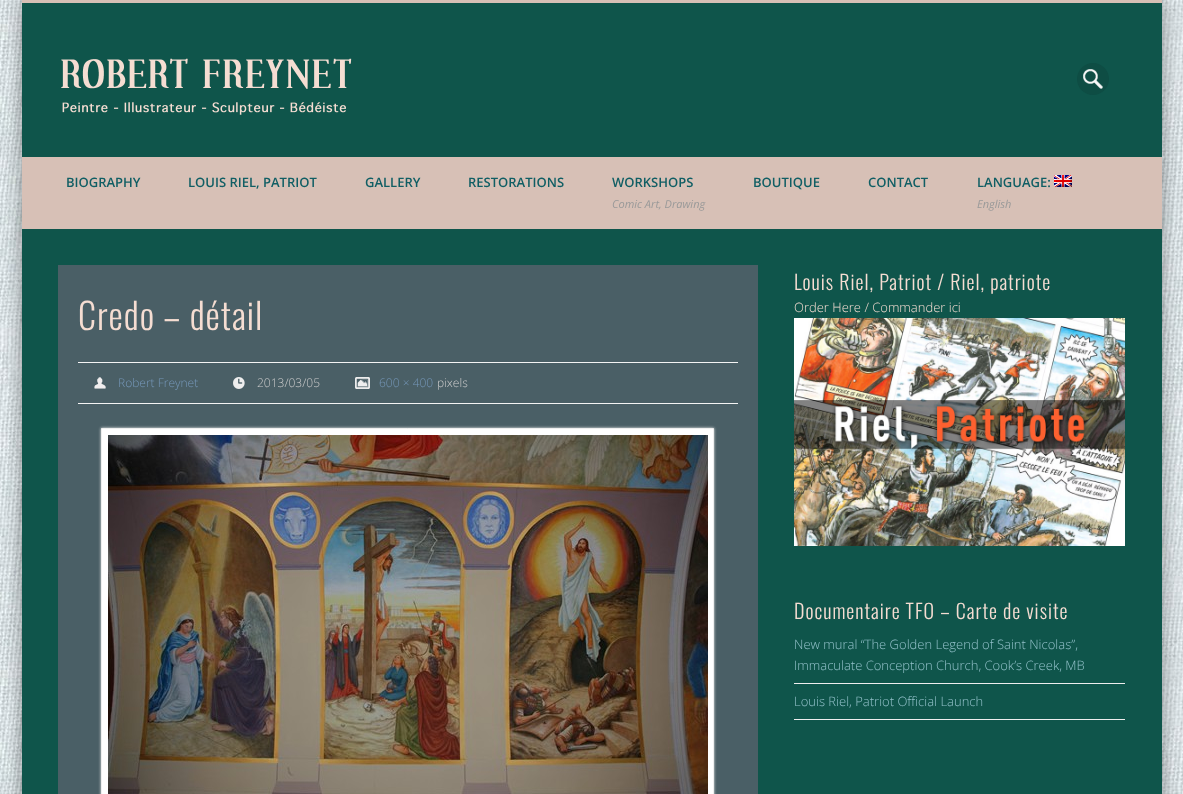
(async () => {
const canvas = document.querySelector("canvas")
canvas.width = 1183
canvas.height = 794
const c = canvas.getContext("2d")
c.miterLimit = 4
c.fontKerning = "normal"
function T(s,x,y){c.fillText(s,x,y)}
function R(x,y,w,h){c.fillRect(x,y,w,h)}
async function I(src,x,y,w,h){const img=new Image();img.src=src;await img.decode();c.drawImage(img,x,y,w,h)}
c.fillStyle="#fff"
R(0,0,1183,794)
await I("1.png",0,0,1183,794)
c.fillStyle="#00000066"
c.filter="blur(9px)"
c.beginPath()
c.rect(22,0,1140,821)
c.fill()
c.filter="none"
c.fillStyle="#0f554b"
R(22,3,1140,791)
c.fillStyle="#d7c0b6"
R(22,0,1140,3)
await I("2.png",61,58,291,57)
c.fillStyle="#0e4d44"
c.beginPath()
c.arc(1093,79,16,0,7)
c.fill()
await I("3.png",1083,69,20,20)
c.fillStyle="#d7c0b6"
R(22,157,1140,72)
c.font="600 13px Open Sans"
c.fillStyle="#105e64"
T("BIOGRAPHY",66,187)
T("LOUIS RIEL, PATRIOT",188,187)
T("GALLERY",365,187)
T("RESTORATIONS",468,187)
T("WORKSHOPS",612,187)
c.font="italic 11px Open Sans"
c.fillStyle="#999"
T("Comic Art, Drawing",612,208)
c.font="600 13px Open Sans"
c.fillStyle="#105e64"
T("BOUTIQUE",753,187)
T("CONTACT",868,187)
T("LANGUAGE:",977,187)
await I("4.png",1054,175,18,12)
c.font="italic 11px Open Sans"
c.fillStyle="#999"
T("English",977,208)
c.fillStyle="#4a5f66"
R(58,265,700,529)
c.letterSpacing="1px"
c.font="300 36px Oswald"
c.fillStyle="#f5ddd2"
T("Credo – détail",78,330)
c.fillStyle="#f4f4f4"
R(78,362,660,1)
R(78,403,660,1)
await I("5.png",94,377,12,12)
c.letterSpacing="0px"
c.font="300 12px Open Sans"
c.fillStyle="#7597b9"
T("Robert Freynet",118,387)
await I("6.png",233,377,12,12)
c.fillStyle="#ccc"
T("2013/03/05",257,387)
await I("7.png",355,377,15,12)
c.fillStyle="#7597b9"
T("600 × 400",379,387)
c.fillStyle="#ccc"
T("pixels",437,387)
c.fillStyle="#eee"
c.filter="blur(1.5px)"
c.beginPath()
c.rect(101,428,613,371)
c.fill()
c.filter="none"
c.fillStyle="#fff"
c.beginPath()
c.rect(101.5,428.5,612,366)
c.fill()
c.strokeStyle="#eee"
c.stroke()
await I("8.png",108,435,600,359)
c.letterSpacing="1px"
c.font="300 20px Oswald"
c.fillStyle="#f5ddd2"
T("Louis Riel, Patriot / Riel, patriote",794,290)
c.letterSpacing="0px"
c.font="300 13px Open Sans"
T("Order Here / Commander ici",794,312)
await I("9.png",794,318,331,228)
c.letterSpacing="1px"
c.font="300 20px Oswald"
T("Documentaire TFO – Carte de visite",794,619)
c.fillStyle="#eee"
R(794,683,331,1)
c.letterSpacing="0px"
c.font="300 13px Open Sans"
c.fillStyle="#93c1ca"
T("New mural “The Golden Legend of Saint Nicolas”,",794,649)
T("Immaculate Conception Church, Cook’s Creek, MB",794,670)
c.fillStyle="#eee"
R(794,719,331,1)
c.fillStyle="#93c1ca"
T("Louis Riel, Patriot Official Launch",794,706)
})()
